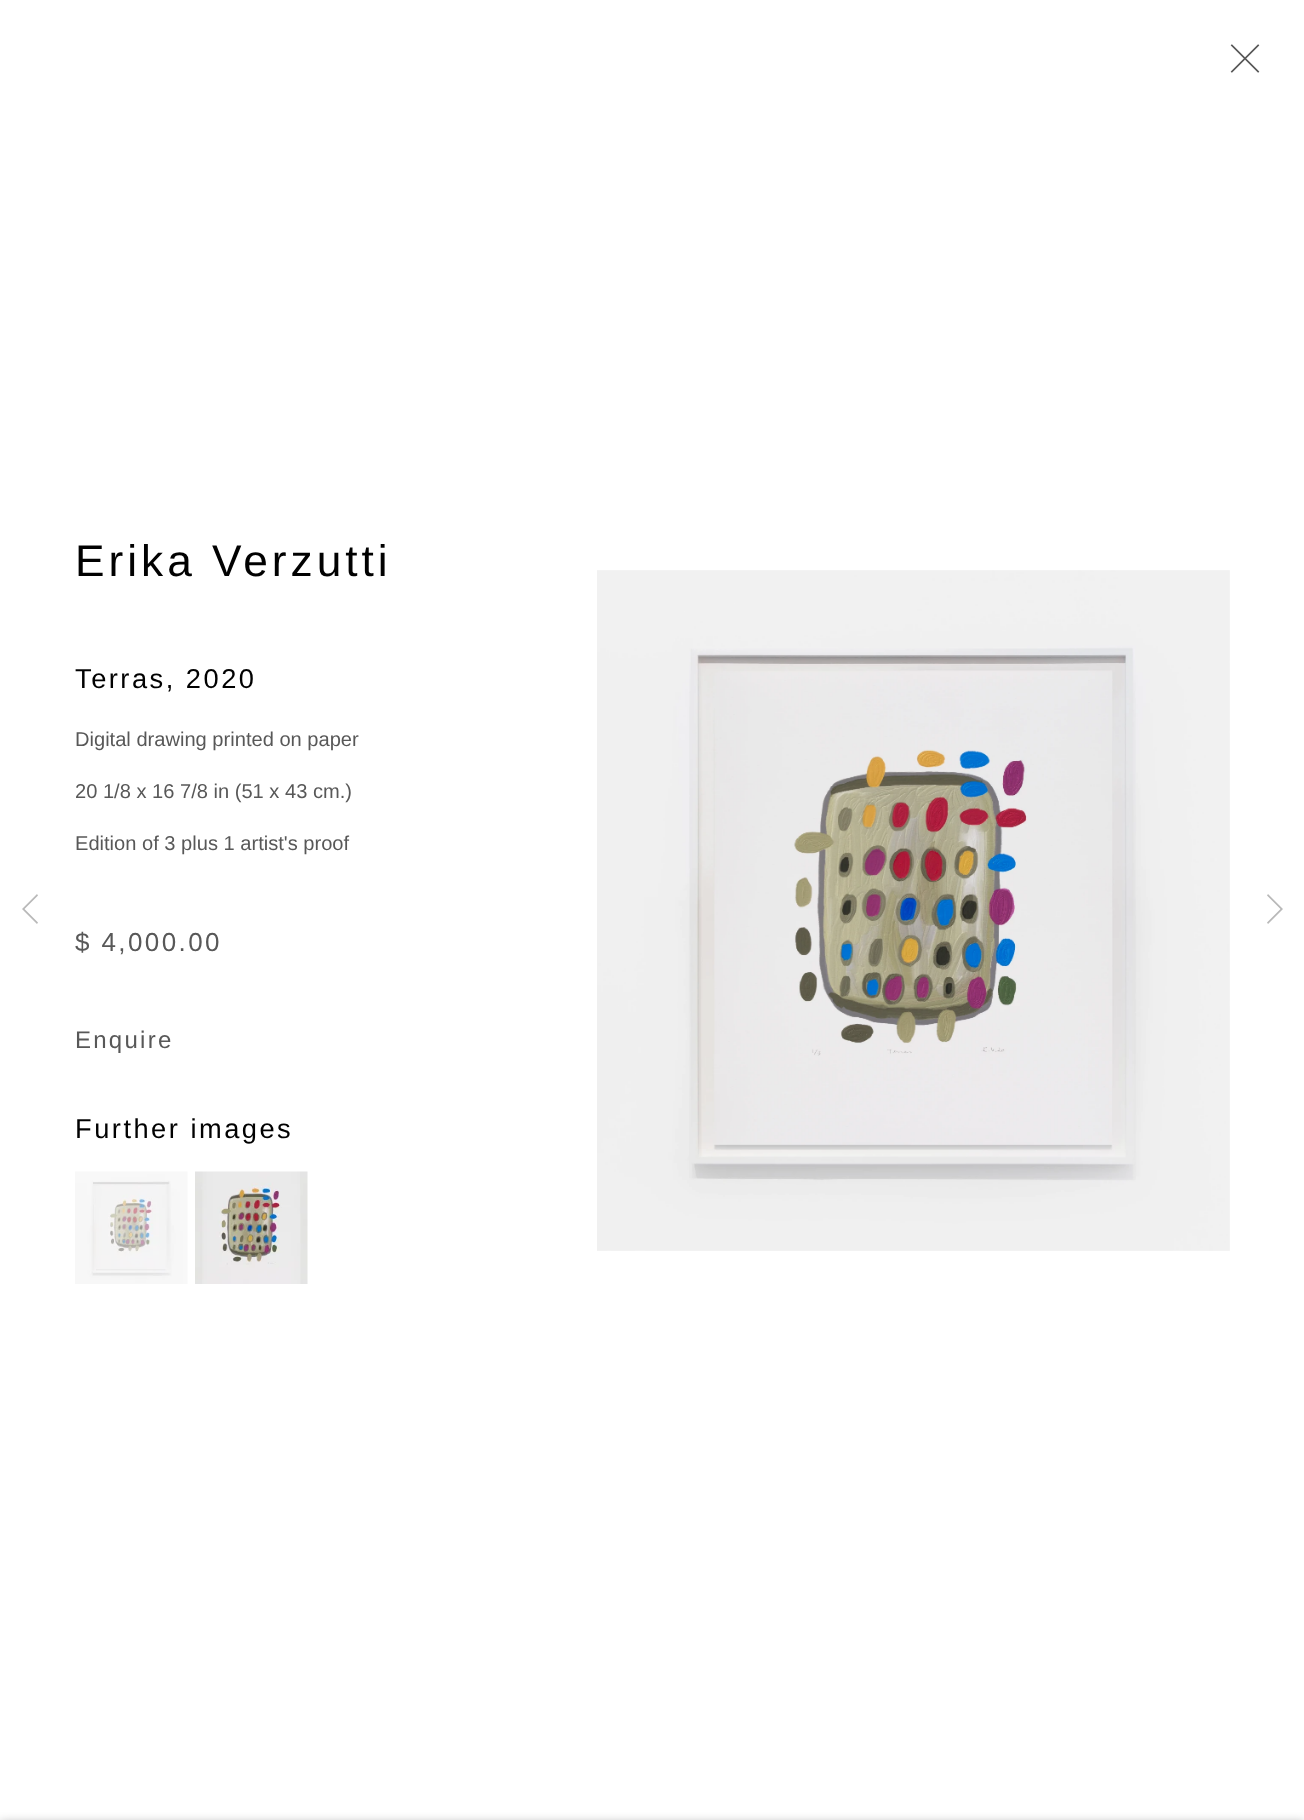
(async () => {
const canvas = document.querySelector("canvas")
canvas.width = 1304
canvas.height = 1820
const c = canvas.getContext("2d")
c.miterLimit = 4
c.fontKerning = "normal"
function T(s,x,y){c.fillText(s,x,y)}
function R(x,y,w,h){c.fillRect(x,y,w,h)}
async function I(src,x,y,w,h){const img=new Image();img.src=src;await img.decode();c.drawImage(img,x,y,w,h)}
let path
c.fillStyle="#fff"
R(0,0,1304,1820)
await I("1.png",1230,44,30,29)
c.letterSpacing="4px"
c.font="44.25px Liberation Sans"
c.fillStyle="#010101"
T("Erika Verzutti",75,576)
c.letterSpacing="2.5px"
c.font="27.25px Liberation Sans"
T("Terras, 2020",75,688)
c.letterSpacing="0px"
c.font="20.1px Liberation Sans"
c.fillStyle="#585858"
T("Digital drawing printed on paper",75,746)
T("20 1/8 x 16 7/8 in (51 x 43 cm.)",75,798)
T("Edition of 3 plus 1 artist's proof",75,850)
c.letterSpacing="2.4px"
c.font="26px Liberation Sans"
T("$ 4,000.00",75,951)
c.letterSpacing="2.25px"
c.font="24px Liberation Sans"
T("Enquire",75,1048)
c.letterSpacing="2.5px"
c.font="27.25px Liberation Sans"
c.fillStyle="#010101"
T("Further images",75,1138)
await I("2.png",75,1171,113,113)
await I("3.png",195,1171,113,113)
await I("4.png",597,570,633,681)
c.fillStyle="#b9b9b9"
path = new Path2D("M23 910l14 14l1-1.5l-13.5-13.5l13.5-13.5l-1-1.5l-15 15z")
c.fill(path)
path = new Path2D("M1283 909l-15-15l-1 1.5l13.5 13.5l-13.5 13.5l1 1.5z")
c.fill(path)
c.fillStyle="#0000003b"
c.filter="blur(4px)"
c.beginPath()
c.rect(0,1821,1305,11)
c.fill()
c.filter="none"
})()
